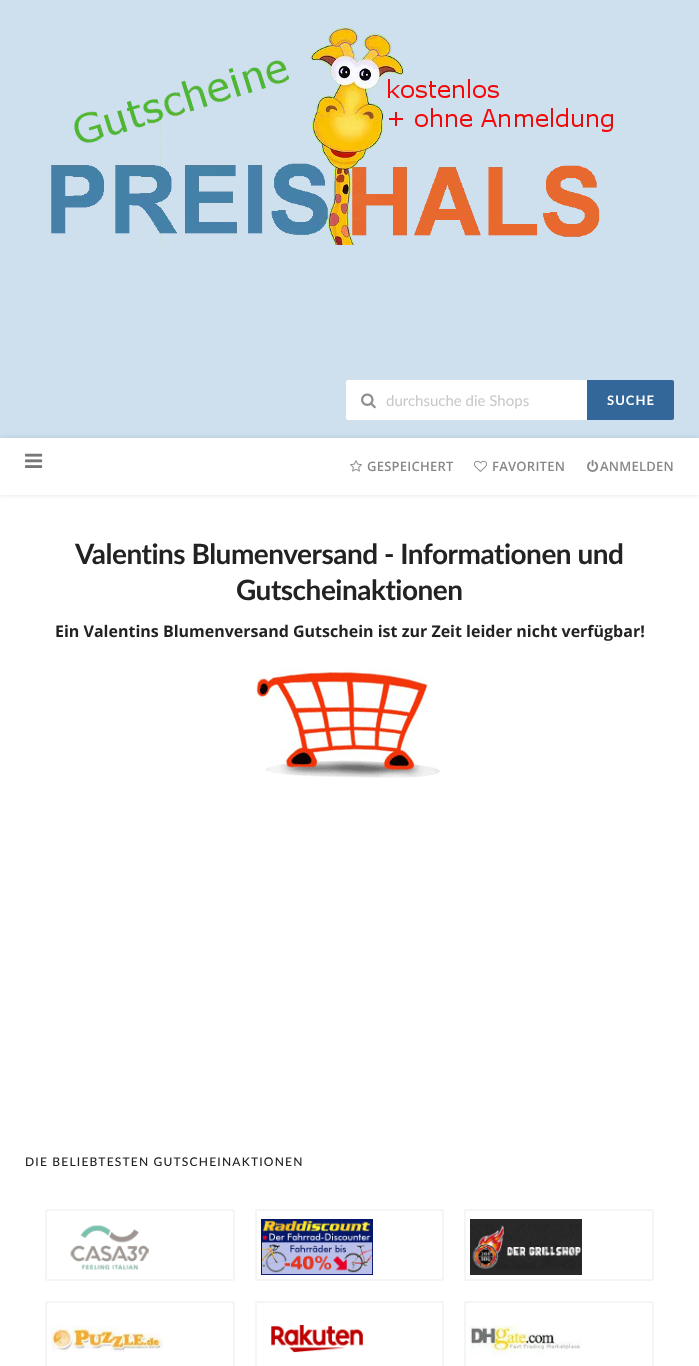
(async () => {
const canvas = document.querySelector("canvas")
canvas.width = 699
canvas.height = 1366
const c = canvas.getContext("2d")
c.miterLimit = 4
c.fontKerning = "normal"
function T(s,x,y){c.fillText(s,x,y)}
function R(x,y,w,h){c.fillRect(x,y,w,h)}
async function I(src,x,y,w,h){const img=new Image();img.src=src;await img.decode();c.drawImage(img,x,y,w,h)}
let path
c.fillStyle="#fff"
R(0,0,699,1366)
c.fillStyle="#cee0ee"
R(0,0,699,438)
await I("1.png",51,27,562,218)
c.fillStyle="#fff"
c.beginPath()
c.roundRect(346,380,241,40,[2,0,0,2])
c.fill()
await I("2.png",361,393,15,16)
c.font="15px Lato"
c.fillStyle="#c7c7c7"
T("durchsuche die Shops",386,406)
c.fillStyle="#369"
c.beginPath()
c.roundRect(587,380,87,40,[0,2,2,0])
c.fill()
c.letterSpacing="1px"
c.font="bold 13px Lato"
c.fillStyle="#fff"
T("SUCHE",607,405)
c.save()
path = new Path2D("M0 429h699v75h-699zm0 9h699v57h-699z")
c.clip(path,"evenodd")
c.fillStyle="#0000001f"
c.filter="blur(2.5px)"
c.beginPath()
c.rect(0,438,699,57)
c.fill()
c.filter="none"
c.restore()
await I("3.png",25,453,18,15)
await I("4.png",350,460,12,12)
c.letterSpacing="0.25px"
c.font="600 13px Open Sans"
c.fillStyle="#888"
T("GESPEICHERT",367,471)
await I("5.png",474,460,13,12)
T("FAVORITEN",492,471)
await I("6.png",587,459,12,13)
T("ANMELDEN",600,471)
c.letterSpacing="-0.5px"
c.font="bold 28px Lato"
c.fillStyle="#222"
T("Valentins Blumenversand - Informationen und",75,564)
T("Gutscheinaktionen",236,600)
c.letterSpacing="0px"
c.font="bold 16px Open Sans"
T("Ein Valentins Blumenversand Gutschein ist zur Zeit leider nicht verfügbar!",55,637)
await I("7.png",256,668,184,110)
c.letterSpacing="1.2px"
c.font="500 12px Lato"
T("DIE BELIEBTESTEN GUTSCHEINAKTIONEN",25,1166)
c.beginPath()
c.roundRect(46,1210,188,70,1)
c.strokeStyle="#f5f5f5"
c.lineWidth=2
c.stroke()
await I("8.png",70,1225,79,45)
c.beginPath()
c.roundRect(256,1210,187,70,1)
c.stroke()
await I("9.png",261,1219,112,56)
c.beginPath()
c.roundRect(465,1210,188,70,1)
c.stroke()
await I("10.png",470,1219,112,56)
c.beginPath()
c.roundRect(46,1302,188,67,1)
c.stroke()
await I("11.png",51,1325,112,28)
c.beginPath()
c.roundRect(256,1302,187,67,1)
c.stroke()
await I("12.png",271,1325,92,28)
c.beginPath()
c.roundRect(465,1302,188,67,1)
c.stroke()
await I("13.png",470,1325,112,31)
})()
